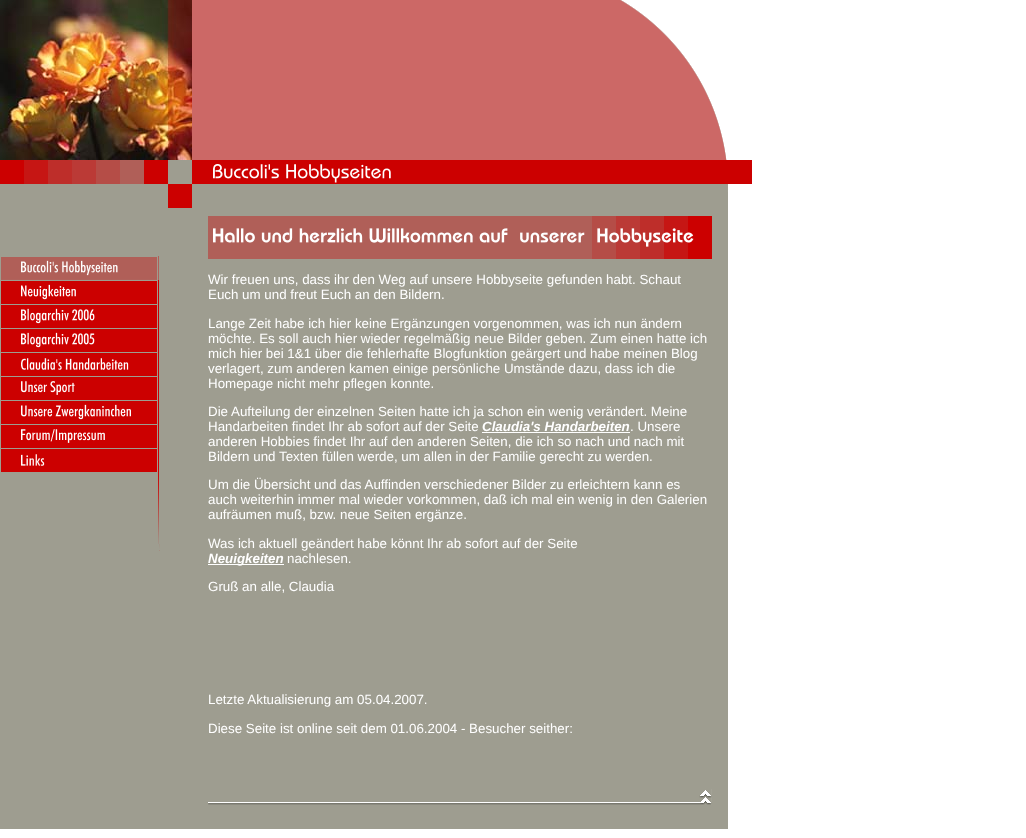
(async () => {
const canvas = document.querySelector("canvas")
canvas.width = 1026
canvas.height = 838
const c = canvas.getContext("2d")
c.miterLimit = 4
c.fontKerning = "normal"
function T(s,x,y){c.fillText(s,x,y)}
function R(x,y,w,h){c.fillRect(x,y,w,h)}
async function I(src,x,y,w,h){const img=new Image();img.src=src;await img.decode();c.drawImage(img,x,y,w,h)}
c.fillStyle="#fff"
R(0,0,1026,838)
await I("1.png",0,0,192,160)
c.fillStyle="#cc6866"
R(192,0,400,12)
R(192,12,400,148)
await I("2.png",592,0,135,160)
c.fillStyle="#9e9d90"
R(0,160,192,669)
await I("3.png",0,160,168,24)
c.fillStyle="#c00"
R(168,184,24,24)
await I("4.png",1,256,158,24)
await I("5.png",1,280,158,24)
await I("6.png",1,304,158,24)
await I("7.png",1,328,158,24)
await I("8.png",1,352,158,24)
await I("9.png",1,376,158,24)
await I("10.png",1,400,158,24)
await I("11.png",1,424,158,24)
await I("12.png",1,448,158,24)
await I("13.png",158,472,2,79)
R(192,160,560,4)
await I("14.png",192,164,560,28)
c.fillStyle="#9e9d90"
R(192,192,536,637)
await I("15.png",208,216,504,43)
c.font="13.35px Liberation Sans"
c.fillStyle="#fff"
T("Wir freuen uns, dass ihr den Weg auf unsere Hobbyseite gefunden habt. Schaut",208,284)
T("Euch um und freut Euch an den Bildern.",208,299)
T("Lange Zeit habe ich hier keine Ergänzungen vorgenommen, was ich nun ändern",208,328)
T("möchte. Es soll auch hier wieder regelmäßig neue Bilder geben. Zum einen hatte ich",208,343)
T("mich hier bei 1&1 über die fehlerhafte Blogfunktion geärgert und habe meinen Blog",208,358)
T("verlagert, zum anderen kamen einige persönliche Umstände dazu, dass ich die",208,373)
T("Homepage nicht mehr pflegen konnte.",208,388)
T("Die Aufteilung der einzelnen Seiten hatte ich ja schon ein wenig verändert. Meine",208,416)
T("Handarbeiten findet Ihr ab sofort auf der Seite",208,431)
c.font="italic bold 13.35px Liberation Sans"
T("Claudia's Handarbeiten",482,431)
R(482,432,148,1)
c.font="13.35px Liberation Sans"
T(". Unsere",630,431)
T("anderen Hobbies findet Ihr auf den anderen Seiten, die ich so nach und nach mit",208,446)
T("Bildern und Texten füllen werde, um allen in der Familie gerecht zu werden.",208,461)
T("Um die Übersicht und das Auffinden verschiedener Bilder zu erleichtern kann es",208,489)
T("auch weiterhin immer mal wieder vorkommen, daß ich mal ein wenig in den Galerien",208,504)
T("aufräumen muß, bzw. neue Seiten ergänze.",208,519)
T("Was ich aktuell geändert habe könnt Ihr ab sofort auf der Seite",208,548)
R(208,564,76,1)
c.font="italic bold 13.35px Liberation Sans"
T("Neuigkeiten",208,563)
c.font="13.35px Liberation Sans"
T("nachlesen.",287,563)
T("Gruß an alle, Claudia",208,591)
T("Letzte Aktualisierung am 05.04.2007.",208,704)
T("Diese Seite ist online seit dem 01.06.2004 - Besucher seither:",208,733)
await I("16.png",208,789,504,16)
})()
